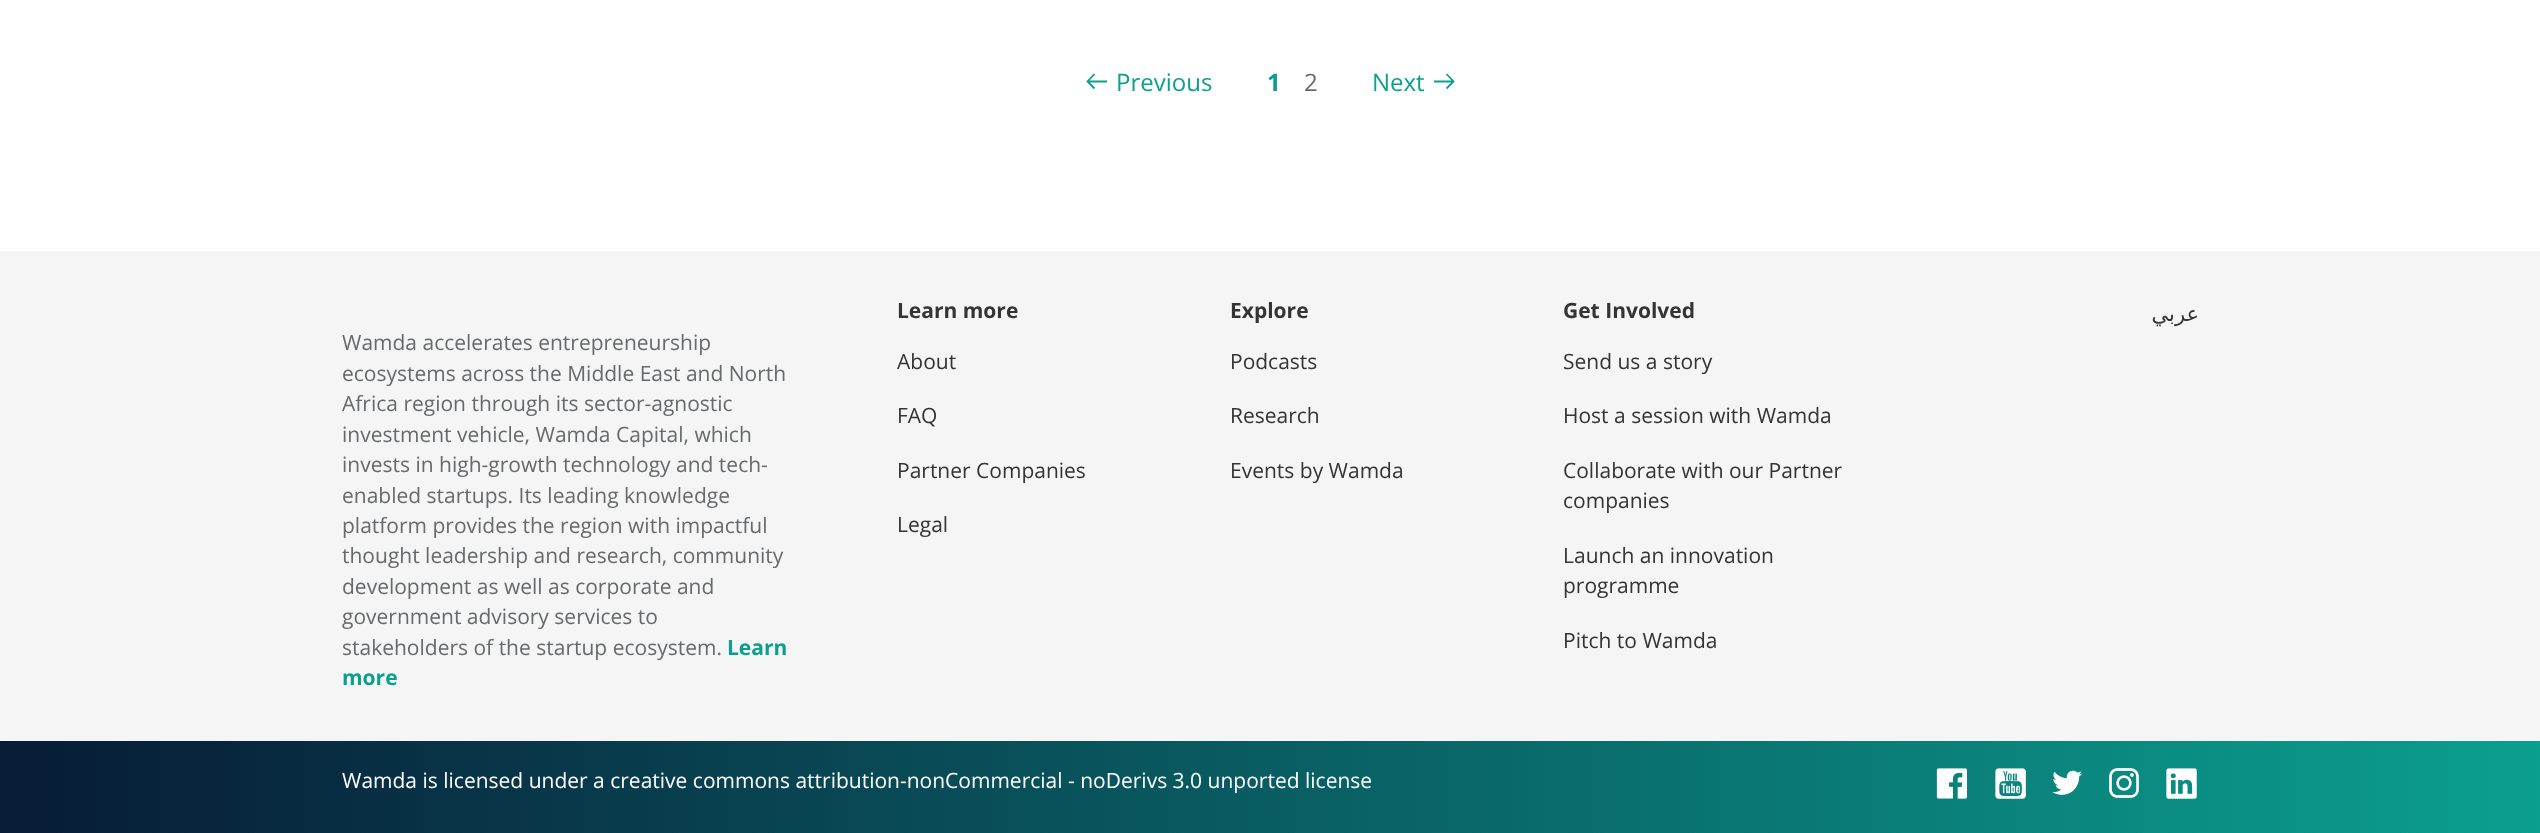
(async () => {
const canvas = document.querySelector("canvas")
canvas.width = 2540
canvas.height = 833
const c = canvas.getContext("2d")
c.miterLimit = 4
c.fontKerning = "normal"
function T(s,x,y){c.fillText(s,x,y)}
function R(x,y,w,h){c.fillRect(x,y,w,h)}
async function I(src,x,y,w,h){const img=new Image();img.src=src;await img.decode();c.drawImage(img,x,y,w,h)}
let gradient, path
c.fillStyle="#fff"
R(0,0,2540,833)
c.font="24px Open Sans"
c.fillStyle="#0b9f8e"
T("Previous",1116,91)
path = new Path2D("M1107 81.5h-19.5m7-7.5l-7 7.5l7 7")
c.strokeStyle="#0b9f8e"
c.lineWidth=1.8
c.stroke(path)
c.font="bold 24px Open Sans"
T("1",1267,91)
c.font="24px Open Sans"
c.fillStyle="#676a6c"
T("2",1304,91)
c.fillStyle="#0b9f8e"
T("Next",1372,91)
path = new Path2D("M1434 81.5h19.5m-7 7l7-7l-7-7.5")
c.stroke(path)
c.fillStyle="#f5f5f5"
R(0,251,2540,490)
c.font="bold 21px Open Sans"
c.fillStyle="#343434"
T("Learn more",897,318)
c.font="21px Open Sans"
T("About",897,369)
T("FAQ",897,423)
T("Partner Companies",897,478)
T("Legal",897,532)
c.font="bold 21px Open Sans"
T("Explore",1230,318)
c.font="21px Open Sans"
T("Podcasts",1230,369)
T("Research",1230,423)
T("Events by Wamda",1230,478)
c.font="bold 21px Open Sans"
T("Get Involved",1563,318)
c.font="21px Open Sans"
T("Send us a story",1563,369)
T("Host a session with Wamda",1563,423)
T("Collaborate with our Partner",1563,478)
T("companies",1563,508)
T("Launch an innovation",1563,563)
T("programme",1563,593)
T("Pitch to Wamda",1563,648)
c.direction="rtl"
c.font="21px DejaVu Sans"
T("عربي",2199,321)
c.direction="ltr"
c.font="21px Open Sans"
c.fillStyle="#676a6c"
T("Wamda accelerates entrepreneurship",342,350)
T("ecosystems across the Middle East and North",342,381)
T("Africa region through its sector-agnostic",342,411)
T("investment vehicle, Wamda Capital, which",342,442)
T("invests in high-growth technology and tech-",342,472)
T("enabled startups. Its leading knowledge",342,503)
T("platform provides the region with impactful",342,533)
T("thought leadership and research, community",342,563)
T("development as well as corporate and",342,594)
T("government advisory services to",342,624)
T("stakeholders of the startup ecosystem.",342,655)
c.font="bold 21px Open Sans"
c.fillStyle="#0b9f8e"
T("Learn",727,655)
T("more",342,685)
gradient = c.createLinearGradient(0,788,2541,788)
gradient.addColorStop(0,"#071b36")
gradient.addColorStop(1,"#0b9f8e")
c.fillStyle = gradient
R(0,741,2540,92)
c.font="21px Open Sans"
c.fillStyle="#fff"
T("Wamda is licensed under a creative commons attribution-nonCommercial - noDerivs 3.0 unported license",342,788)
await I("1.png",1936,768,32,31)
await I("2.png",1995,768,31,31)
await I("3.png",2052,770,30,25)
await I("4.png",2109,768,30,30)
await I("5.png",2166,768,31,31)
})()
